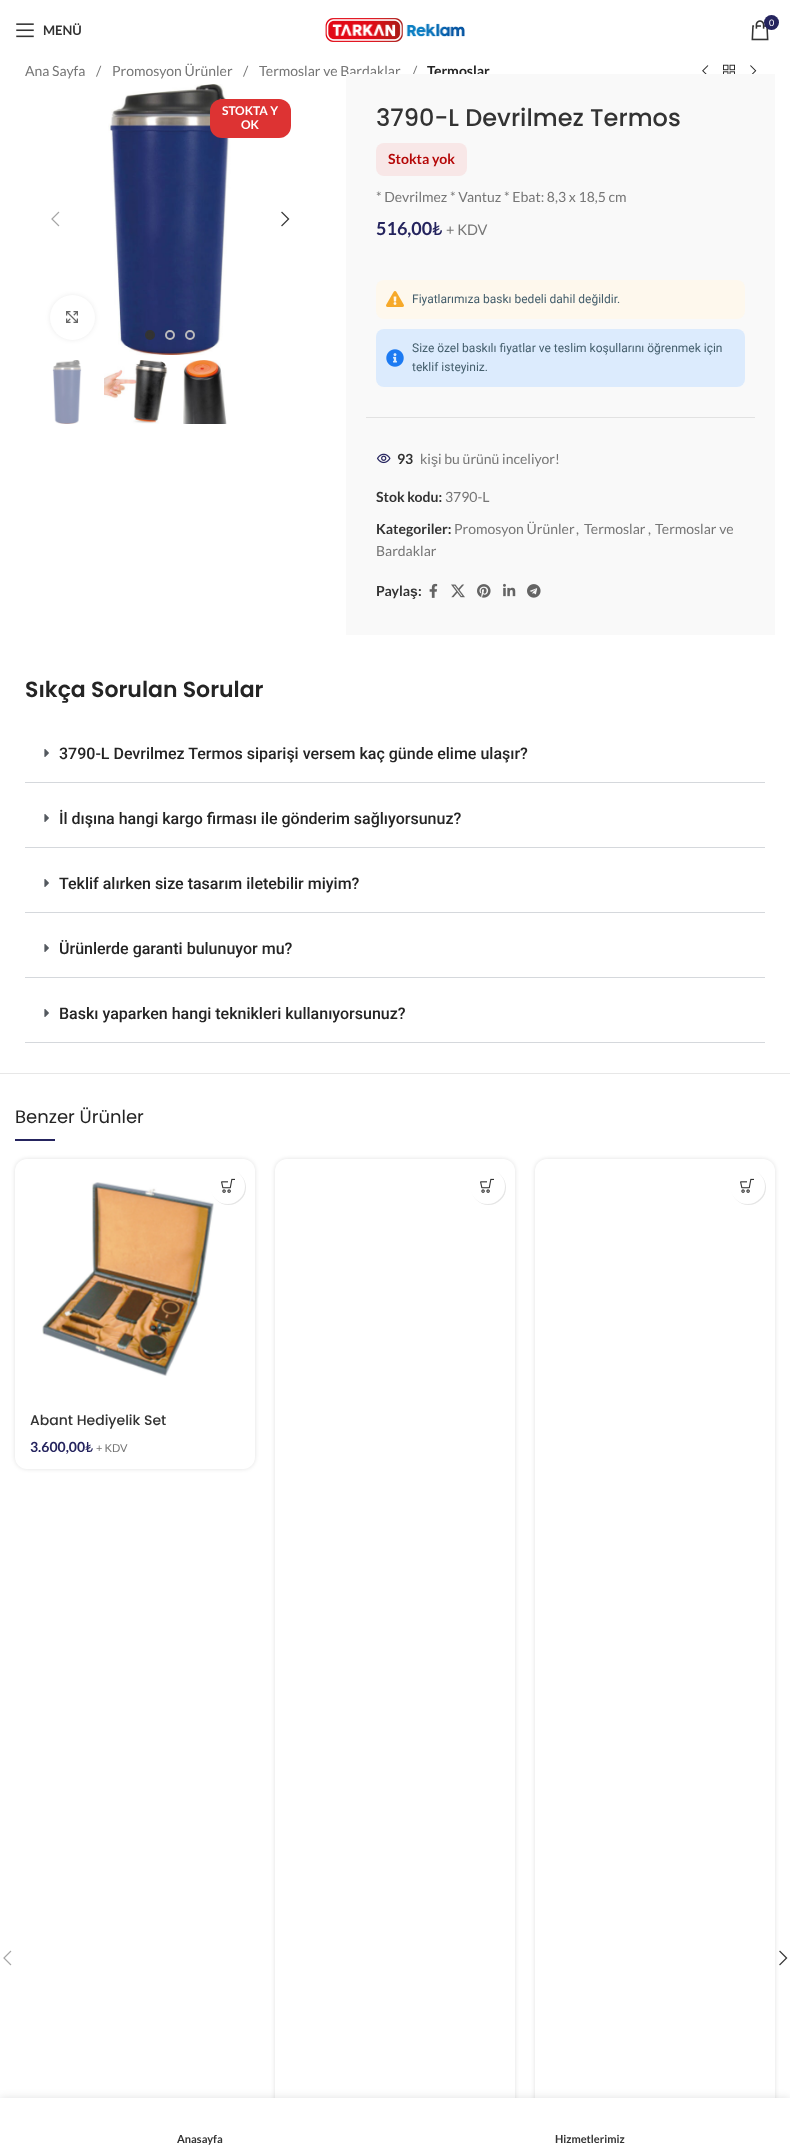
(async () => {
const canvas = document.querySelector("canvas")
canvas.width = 790
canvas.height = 2153
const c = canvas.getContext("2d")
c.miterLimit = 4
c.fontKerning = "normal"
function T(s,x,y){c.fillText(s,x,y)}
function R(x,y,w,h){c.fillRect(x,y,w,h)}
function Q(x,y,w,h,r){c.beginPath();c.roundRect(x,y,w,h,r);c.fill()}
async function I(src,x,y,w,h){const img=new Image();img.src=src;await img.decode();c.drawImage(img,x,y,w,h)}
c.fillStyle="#fff"
R(0,0,790,2153)
await I("1.png",16,23,18,15)
c.font="bold 13px Lato"
c.fillStyle="#333"
T("MENÜ",43,35)
await I("2.png",325,18,140,24)
await I("3.png",751,20,18,21)
c.fillStyle="#25245e"
c.beginPath()
c.arc(771.5,22.5,7.5,0,7)
c.fill()
c.font="9px Lato"
c.fillStyle="#fff"
T("0",769,26)
c.font="14px Lato"
c.fillStyle="#767676"
T("Ana Sayfa",25,76)
T("/",96,76)
T("Promosyon Ürünler",112,76)
T("/",243,76)
T("Termoslar ve Bardaklar",259,76)
T("/",412,76)
c.font="bold 14px Lato"
c.fillStyle="#242424"
T("Termoslar",427,76)
await I("4.png",702,65,7,9)
await I("5.png",723,64,12,10)
await I("6.png",750,65,7,9)
await I("7.png",108,84,123,271)
c.fillStyle="#d33"
Q(210,99,81,39,12)
c.font="bold 12px Lato"
c.fillStyle="#fff"
T("STOKTA Y",222,115)
T("OK",241,129)
await I("8.png",51,211,9,16)
await I("9.png",281,211,9,16)
c.fillStyle="#00000014"
c.filter="blur(2.5px)"
c.beginPath()
c.roundRect(50,295,45,45,22.5)
c.fill()
c.filter="none"
c.fillStyle="#fff"
c.beginPath()
c.arc(72.5,317.5,22.5,0,7)
c.fill()
await I("10.png",66,311,12,12)
c.fillStyle="#333"
c.beginPath()
c.arc(150,335,4,0,7)
c.fill()
c.strokeStyle="#333"
c.lineWidth=2
c.stroke()
c.beginPath()
c.arc(170,335,4,0,7)
c.strokeStyle="#bbb"
c.stroke()
c.beginPath()
c.arc(190,335,4,0,7)
c.stroke()
await I("11.png",52,360,30,64)
await I("12.png",104,360,64,64)
await I("13.png",183,360,44,64)
c.fillStyle="#f9f9f9"
R(346,74,429,561)
c.font="500 24px Poppins"
c.fillStyle="#333"
T("3790-L Devrilmez Termos",376,126)
c.fillStyle="#f8e7e7"
Q(376,143,91,33,8)
c.font="bold 14px Lato"
c.fillStyle="#b50808"
T("Stokta yok",388,164)
c.font="14px Lato"
c.fillStyle="#767676"
T("* Devrilmez * Vantuz * Ebat: 8,3 x 18,5 cm",376,202)
c.font="bold 18px Lato"
c.fillStyle="#25245e"
T("516,00",376,235)
c.font="18px 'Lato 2'"
T("₺",432,235)
c.font="14.5px Lato"
c.fillStyle="#767676"
T("+ KDV",446,235)
c.fillStyle="#fef8ed"
Q(376,280,369,39,8)
await I("14.png",386,291,18,16)
c.font="12px Roboto"
c.fillStyle="#445e6c"
T("Fiyatlarımıza baskı bedeli dahil değildir.",412,303)
c.fillStyle="#dcebfd"
Q(376,329,369,58,8)
await I("15.png",386,349,18,18)
c.fillStyle="#445e6c"
T("Size özel baskılı fiyatlar ve teslim koşullarını öğrenmek için",412,352)
T("teklif isteyiniz.",412,371)
c.fillStyle="#e2e2e2"
R(366,417,389,1)
await I("16.png",376,453,15,11)
c.font="bold 14px Lato"
c.fillStyle="#333"
T("93",397,464)
c.font="14px Lato"
c.fillStyle="#767676"
T("ki",420,464)
c.font="14px Liberation Sans"
T("ş",431,464)
c.font="14px Lato"
T("i bu ürünü inceliyor!",438,464)
c.font="bold 14px Lato"
c.fillStyle="#333"
T("Stok kodu:",376,502)
c.font="14px Lato"
c.fillStyle="#767676"
T("3790-L",445,502)
c.font="bold 14px Lato"
c.fillStyle="#333"
T("Kategoriler:",376,534)
c.font="14px Lato"
c.fillStyle="#767676"
T("Promosyon Ürünler",454,534)
T(",",576,534)
T("Termoslar",584,534)
T(",",648,534)
T("Termoslar ve",655,534)
T("Bardaklar",376,556)
c.font="bold 14px Lato"
c.fillStyle="#333"
T("Payla",376,596)
c.font="bold 14px Liberation Sans"
T("ş",410,596)
c.font="bold 14px Lato"
T(":",418,596)
await I("17.png",429,583,9,15)
await I("18.png",451,584,14,14)
await I("19.png",477,584,14,14)
await I("20.png",503,583,13,14)
await I("21.png",527,584,14,14)
c.font="600 22px Poppins"
c.fillStyle="#242424"
T("Sıkça Sorulan Sorular",25,697)
c.fillStyle="#d5d8dc"
R(25,782,740,1)
await I("22.png",44,749,5,8)
c.font="500 16px Roboto"
c.fillStyle="#242424"
T("3790-L Devrilmez Termos siparişi versem kaç günde elime ulaşır?",59,759)
c.fillStyle="#d5d8dc"
R(25,847,740,1)
await I("22.png",44,814,5,8)
c.fillStyle="#242424"
T("İl dışına hangi kargo firması ile gönderim sağlıyorsunuz?",59,824)
c.fillStyle="#d5d8dc"
R(25,912,740,1)
await I("22.png",44,879,5,8)
c.fillStyle="#242424"
T("Teklif alırken size tasarım iletebilir miyim?",59,889)
c.fillStyle="#d5d8dc"
R(25,977,740,1)
await I("22.png",44,944,5,8)
c.fillStyle="#242424"
T("Ürünlerde garanti bulunuyor mu?",59,954)
c.fillStyle="#d5d8dc"
R(25,1042,740,1)
await I("22.png",44,1009,5,8)
c.fillStyle="#242424"
T("Baskı yaparken hangi teknikleri kullanıyorsunuz?",59,1019)
c.fillStyle="#e7e7e7"
R(0,1073,790,1)
c.font="18px Poppins"
c.fillStyle="#242424"
T("Benzer Ürünler",15,1123)
c.fillStyle="#25245e"
R(15,1139,40,2)
c.fillStyle="#0000001f"
c.filter="blur(2px)"
c.beginPath()
c.roundRect(15,1159,240,310,12)
c.fill()
c.filter="none"
c.fillStyle="#fff"
Q(15,1159,240,310,12)
await I("23.png",42,1182,172,194)
c.fillStyle="#0000001a"
c.filter="blur(0.5px)"
c.beginPath()
c.roundRect(211,1170,35,35,17.5)
c.fill()
c.filter="none"
c.fillStyle="#fff"
c.beginPath()
c.arc(227.5,1186.5,17.5,0,7)
c.fill()
await I("24.png",221,1178,14,15)
c.font="500 14px Poppins"
c.fillStyle="#333"
T("Abant Hediyelik Set",30,1425)
c.font="bold 14px Lato"
c.fillStyle="#25245e"
T("3.600,00",30,1452)
c.font="14px 'Lato 2'"
T("₺",85,1452)
c.font="11px Lato"
c.fillStyle="#767676"
T("+ KDV",96,1452)
c.fillStyle="#0000001f"
c.filter="blur(2px)"
c.beginPath()
c.roundRect(275,1159,240,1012,12)
c.fill()
c.filter="none"
c.fillStyle="#fff"
Q(275,1159,240,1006,12)
c.fillStyle="#0000001a"
c.filter="blur(0.5px)"
c.beginPath()
c.roundRect(471,1170,35,35,17.5)
c.fill()
c.filter="none"
c.fillStyle="#fff"
c.beginPath()
c.arc(487.5,1186.5,17.5,0,7)
c.fill()
await I("24.png",480,1178,14,15)
c.fillStyle="#0000001f"
c.filter="blur(2px)"
c.beginPath()
c.roundRect(535,1159,240,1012,12)
c.fill()
c.filter="none"
c.fillStyle="#fff"
Q(535,1159,240,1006,12)
c.fillStyle="#0000001a"
c.filter="blur(0.5px)"
c.beginPath()
c.roundRect(731,1170,35,35,17.5)
c.fill()
c.filter="none"
c.fillStyle="#fff"
c.beginPath()
c.arc(747.5,1186.5,17.5,0,7)
c.fill()
await I("24.png",740,1178,14,15)
await I("8.png",3,1950,9,16)
await I("9.png",779,1950,9,16)
c.fillStyle="#0000001f"
c.filter="blur(4.5px)"
c.beginPath()
c.rect(0,2098,790,55)
c.fill()
c.filter="none"
c.fillStyle="#fff"
R(0,2098,790,55)
c.font="bold 11px Lato"
c.fillStyle="#333"
T("Anasayfa",177,2143)
T("Hizmetlerimiz",555,2143)
})()
